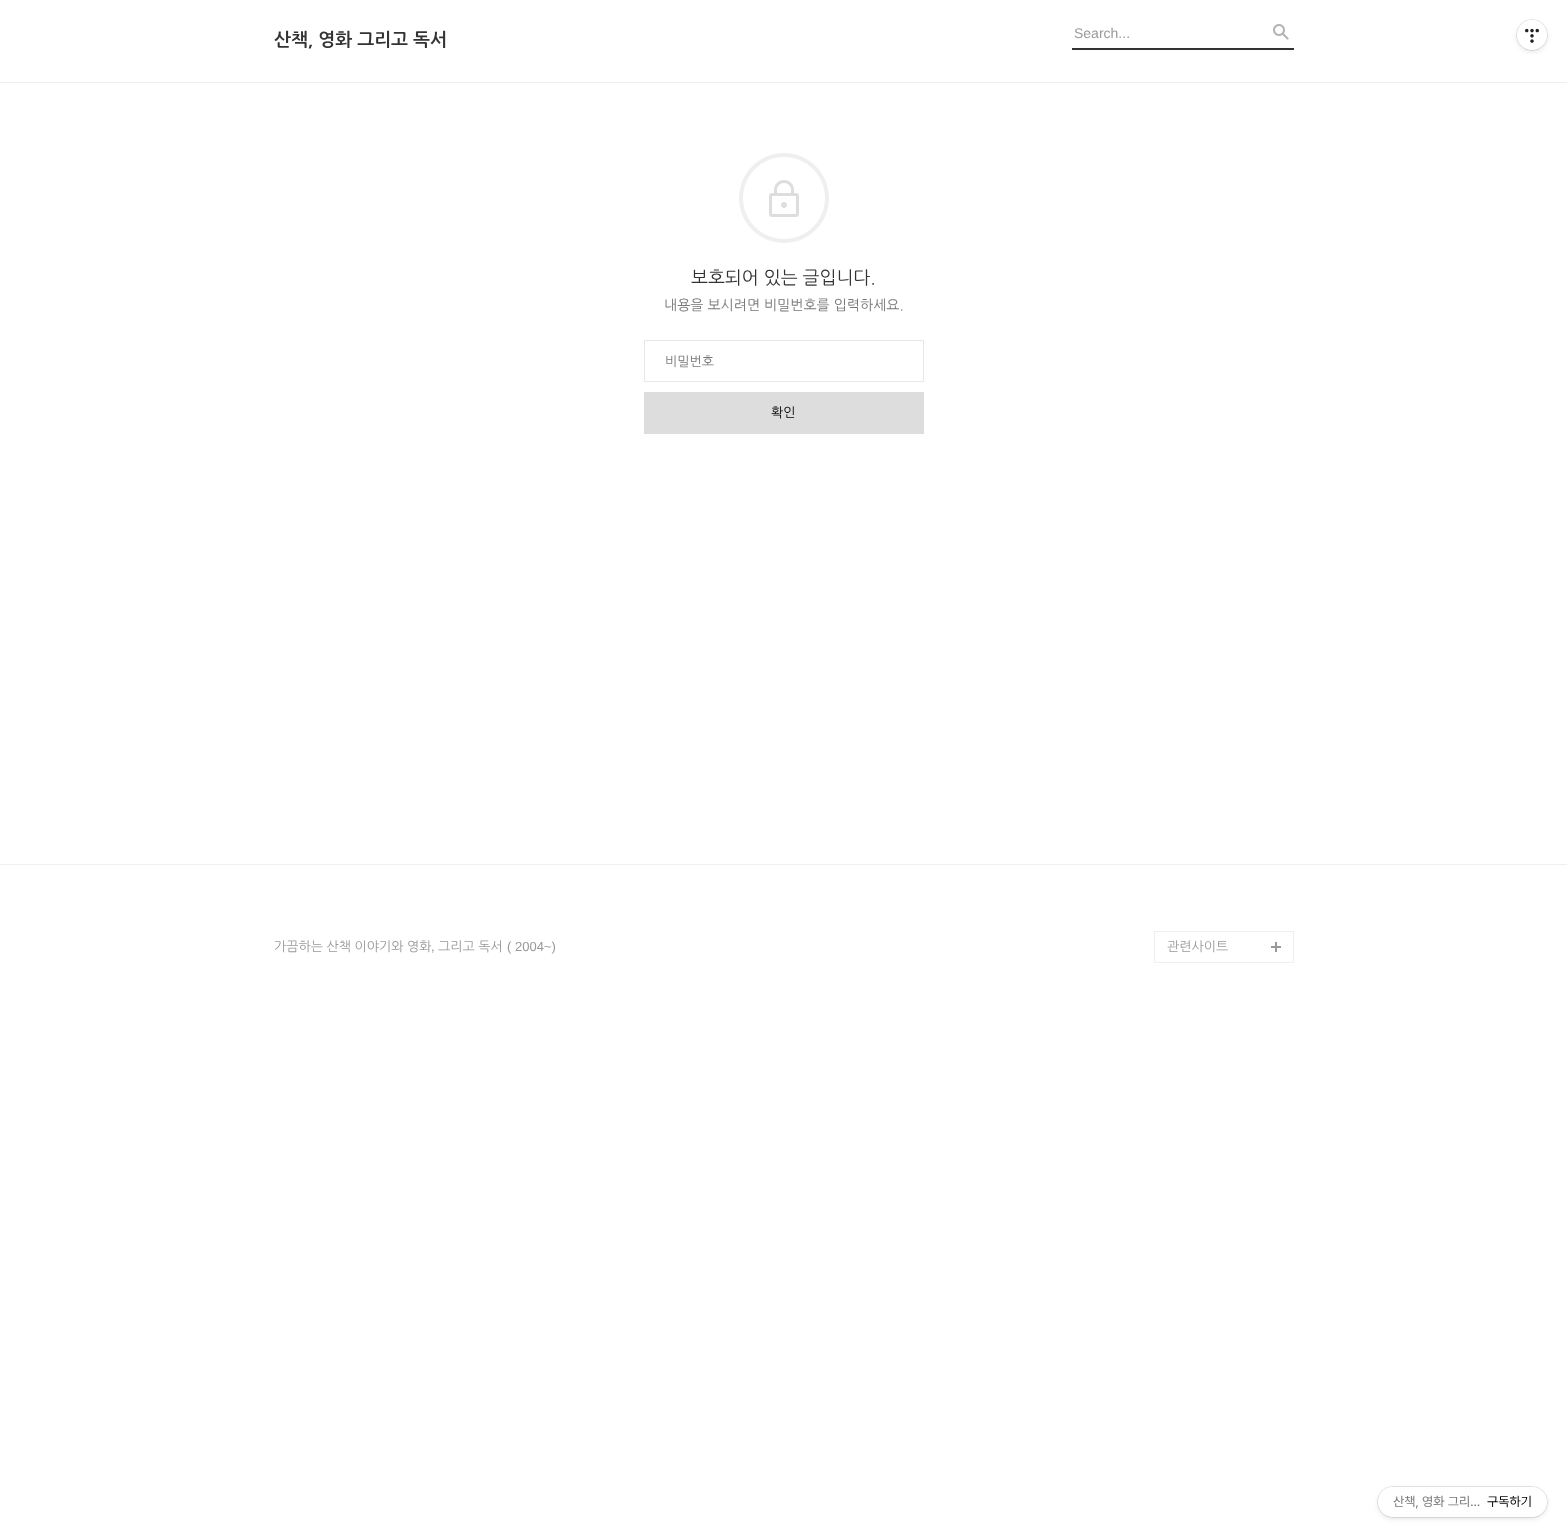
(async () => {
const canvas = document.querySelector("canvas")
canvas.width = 1567
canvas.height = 1537
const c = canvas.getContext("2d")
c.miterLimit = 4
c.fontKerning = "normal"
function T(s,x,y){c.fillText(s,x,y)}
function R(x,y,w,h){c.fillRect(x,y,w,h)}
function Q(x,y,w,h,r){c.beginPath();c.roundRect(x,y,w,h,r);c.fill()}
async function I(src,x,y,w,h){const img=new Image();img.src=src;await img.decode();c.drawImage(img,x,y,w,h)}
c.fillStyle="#fff"
R(0,0,1567,1537)
c.fillStyle="#efefef"
R(0,82,1567,1)
c.font="bold 18px NanumGothic"
c.fillStyle="#333"
T("산책, 영화 그리고 독서",274,46)
await I("1.png",1273,24,16,16)
R(1072,48,222,2)
c.font="14px Liberation Sans"
c.fillStyle="#999"
T("Search...",1074,38)
await I("2.png",739,153,90,90)
c.font="18px NanumGothic"
c.fillStyle="#333"
T("보호되어 있는 글입니다.",691,284)
c.font="14px NanumGothic"
c.fillStyle="#777"
T("내용을 보시려면 비밀번호를 입력하세요.",664,310)
c.strokeStyle="#e8e8e8"
c.strokeRect(644.5,340.5,279,41)
c.font="13px NanumGothic"
T("비밀번호",665,366)
c.fillStyle="#ddd"
R(644,392,280,42)
c.fillStyle="#000"
T("확인",771,417)
c.fillStyle="#efefef"
R(0,864,1567,1)
c.fillStyle="#999"
T("가끔하는 산책 이야기와 영화",274,951)
c.font="13px Liberation Sans"
T(",",431,951)
c.font="13px NanumGothic"
T("그리고 독서",438,951)
c.font="13px Liberation Sans"
T("( 2004~)",507,951)
await I("3.png",1271,942,10,10)
c.strokeStyle="#efefef"
c.strokeRect(1154.5,931.5,139,31)
c.font="13px NanumGothic"
T("관련사이트",1167,951)
c.fillStyle="#0000001a"
c.filter="blur(2.5px)"
c.beginPath()
c.roundRect(1517,22,30,30,15)
c.fill()
c.filter="none"
c.beginPath()
c.arc(1532,35,15.5,0,7)
c.strokeStyle="#0000001a"
c.stroke()
c.fillStyle="#fff"
c.beginPath()
c.arc(1532,35,15,0,7)
c.fill()
await I("4.png",1525,28,14,15)
c.fillStyle="#0000001a"
c.filter="blur(2.5px)"
c.beginPath()
c.roundRect(1378,1489,169,30,15)
c.fill()
c.filter="none"
c.beginPath()
c.roundRect(1377.5,1486.5,170,31,15.5)
c.stroke()
c.fillStyle="#fff"
Q(1378,1487,169,30,15)
c.font="13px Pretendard"
c.fillStyle="#777"
T("산책, 영화 그리…",1393,1506)
c.fillStyle="#000"
T("구독하기",1487,1506)
})()
